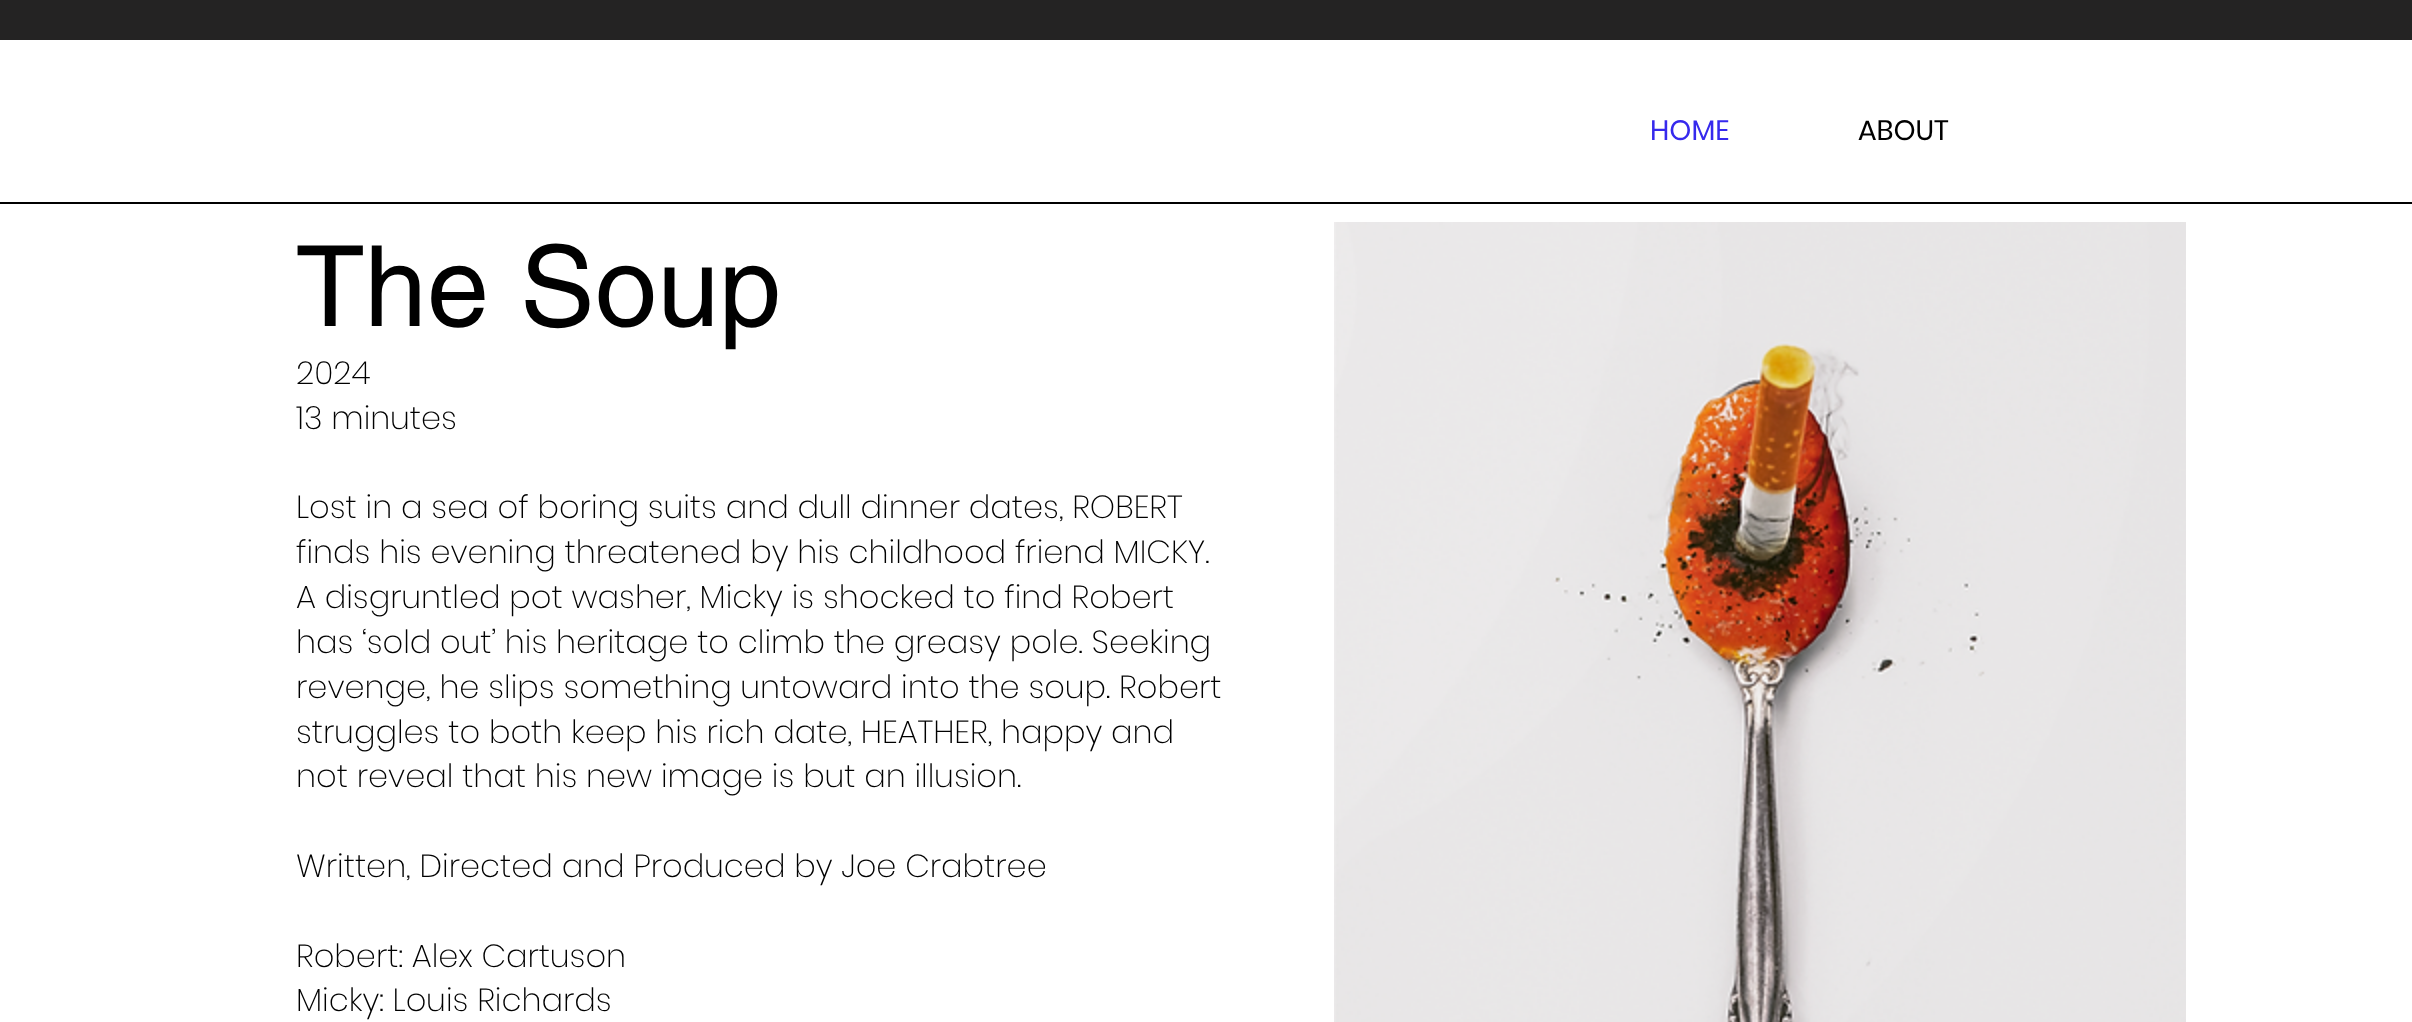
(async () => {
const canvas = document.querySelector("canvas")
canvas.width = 2412
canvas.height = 1022
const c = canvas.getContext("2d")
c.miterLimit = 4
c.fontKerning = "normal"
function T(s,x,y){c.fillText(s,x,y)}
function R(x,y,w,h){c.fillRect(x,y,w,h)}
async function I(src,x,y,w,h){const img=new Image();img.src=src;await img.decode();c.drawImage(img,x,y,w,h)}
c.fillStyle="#fff"
R(0,0,2412,1022)
c.fillStyle="#242323"
R(0,0,2412,40)
c.font="28px Poppins"
c.fillStyle="#3629ed"
T("HOME",1650,140)
c.fillStyle="#000"
T("ABOUT",1858,140)
R(0,202,2412,2)
c.font="112px helvetica"
T("The Soup",296,326)
await I("1.png",1334,222,852,800)
c.font="200 32px Poppins"
T("2024",296,384)
T("13 minutes",296,429)
T("Lost in a sea of boring suits and dull dinner dates, ROBERT",296,518)
T("finds his evening threatened by his childhood friend MICKY.",296,563)
T("A disgruntled pot washer, Micky is shocked to find Robert",296,608)
T("has ‘sold out’ his heritage to climb the greasy pole. Seeking",296,653)
T("revenge, he slips something untoward into the soup. Robert",296,698)
T("struggles to both keep his rich date, HEATHER, happy and",296,743)
T("not reveal that his new image is but an illusion.",296,787)
T("Written, Directed and Produced by Joe Crabtree",296,877)
T("Robert: Alex Cartuson",296,967)
T("Micky: Louis Richards",296,1011)
})()
